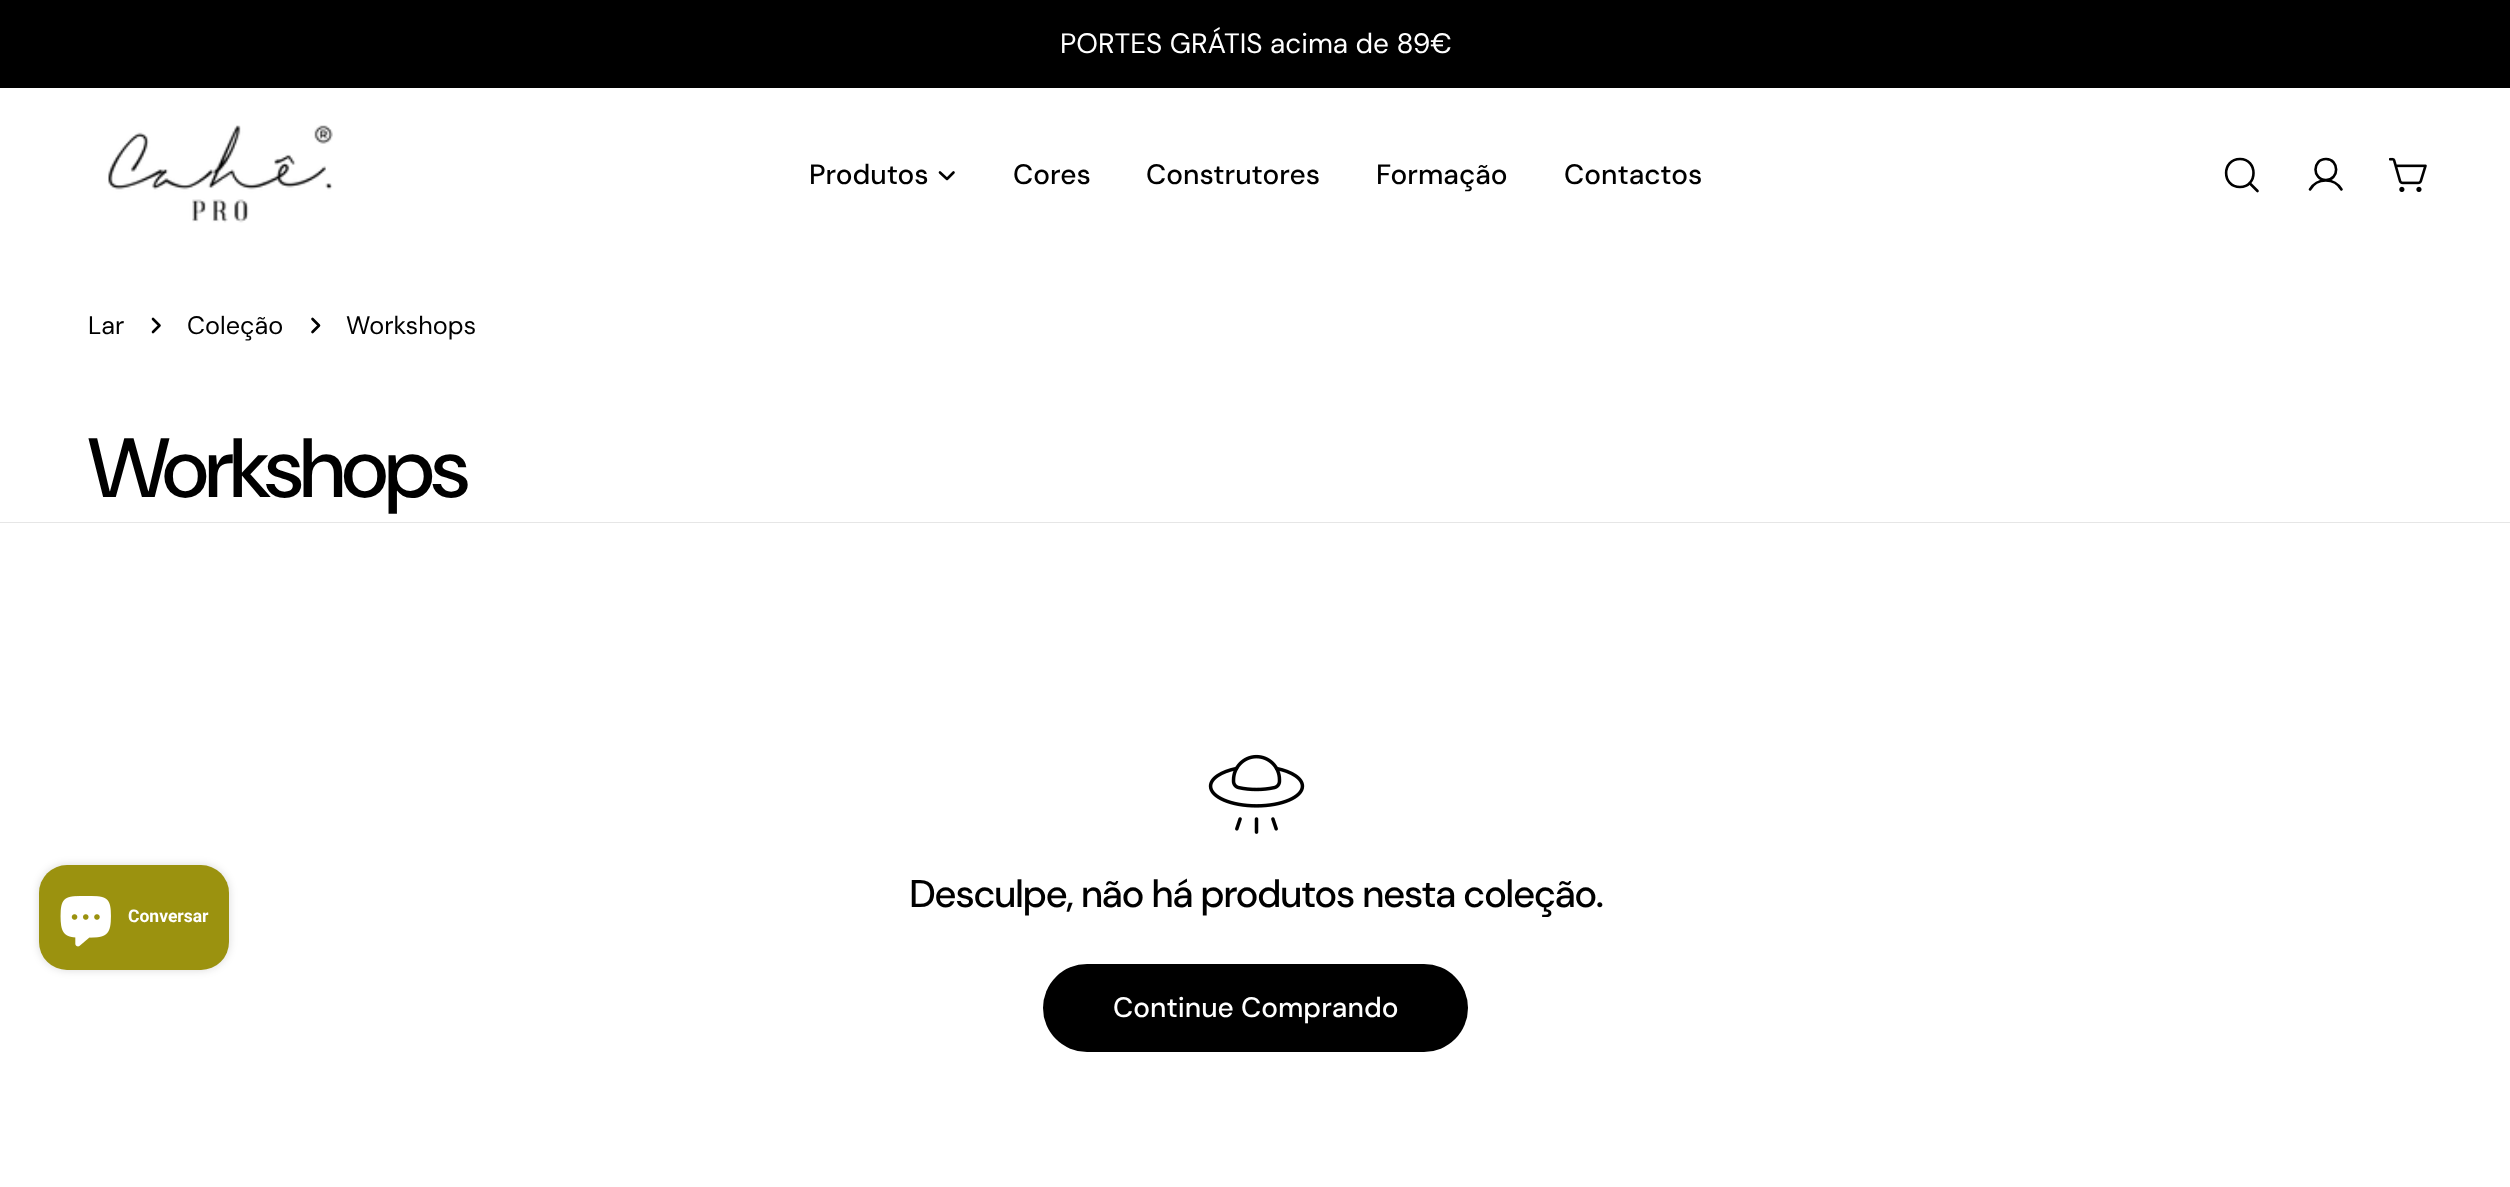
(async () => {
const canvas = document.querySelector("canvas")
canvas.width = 2510
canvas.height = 1187
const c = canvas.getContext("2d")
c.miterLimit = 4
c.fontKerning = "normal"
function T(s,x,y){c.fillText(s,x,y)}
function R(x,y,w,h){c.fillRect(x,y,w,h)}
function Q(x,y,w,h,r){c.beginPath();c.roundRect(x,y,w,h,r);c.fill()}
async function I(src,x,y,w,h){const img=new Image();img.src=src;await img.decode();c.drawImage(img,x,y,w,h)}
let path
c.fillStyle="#fff"
R(0,0,2510,1187)
c.fillStyle="#000"
R(0,0,2510,88)
c.font="28px DM Sans"
c.fillStyle="#fff"
T("PORTES GRÁTIS acima de 89€",1060,53)
await I("1.png",108,125,225,98)
c.font="500 28px 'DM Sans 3'"
c.fillStyle="#000"
T("Produtos",809,184)
path = new Path2D("M953.5 172.5l-6.5 6.5l-7-6.5")
c.strokeStyle="#000"
c.lineWidth=2.6
c.lineCap="round"
c.lineJoin="round"
c.stroke(path)
T("Cores",1013,184)
T("Construtores",1146,184)
T("Formação",1376,184)
T("Contactos",1564,184)
path = new Path2D("M2240 187c18 0 18-28 0-28c-18.5 0-18.5 28 0 28zm9.5-4l8 8")
c.stroke(path)
path = new Path2D("M2326 180c13.5 0 13.5-21 0-21c-14 0-14 21 0 21zm-16 9.5c7-12 24.5-12 31.5 0")
c.stroke(path)
await I("2.png",2389,157,38,35)
c.font="25.25px DM Sans"
T("Lar",88,334)
path = new Path2D("M153 319l6.5 6.5l-6.5 6.5")
c.stroke(path)
T("Coleção",187,334)
path = new Path2D("M312.5 319l6.5 6.5l-6.5 6.5")
c.stroke(path)
T("Workshops",346,334)
c.letterSpacing="-3.25px"
c.font="500 84px DM Sans"
T("Workshops",88,497)
c.fillStyle="#e6e6e6"
R(0,522,2510,1)
await I("3.png",1208,754,97,80)
c.letterSpacing="-1.55px"
c.font="500 38.5px 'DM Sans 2'"
c.fillStyle="#000"
T("Desculpe, não há produtos nesta coleção.",909,907)
Q(1043,964,425,88,44)
c.letterSpacing="0px"
c.font="500 28px 'DM Sans 3'"
c.fillStyle="#fff"
T("Continue Comprando",1113,1017)
c.fillStyle="#00000026"
c.filter="blur(4.5px)"
c.beginPath()
c.roundRect(39,865,190,105,28)
c.fill()
c.filter="none"
c.fillStyle="#9b920f"
Q(39,865,190,105,28)
await I("4.png",60,896,51,51)
c.font="bold 17.5px Roboto"
c.fillStyle="#fff"
T("Conversar",128,922)
})()
